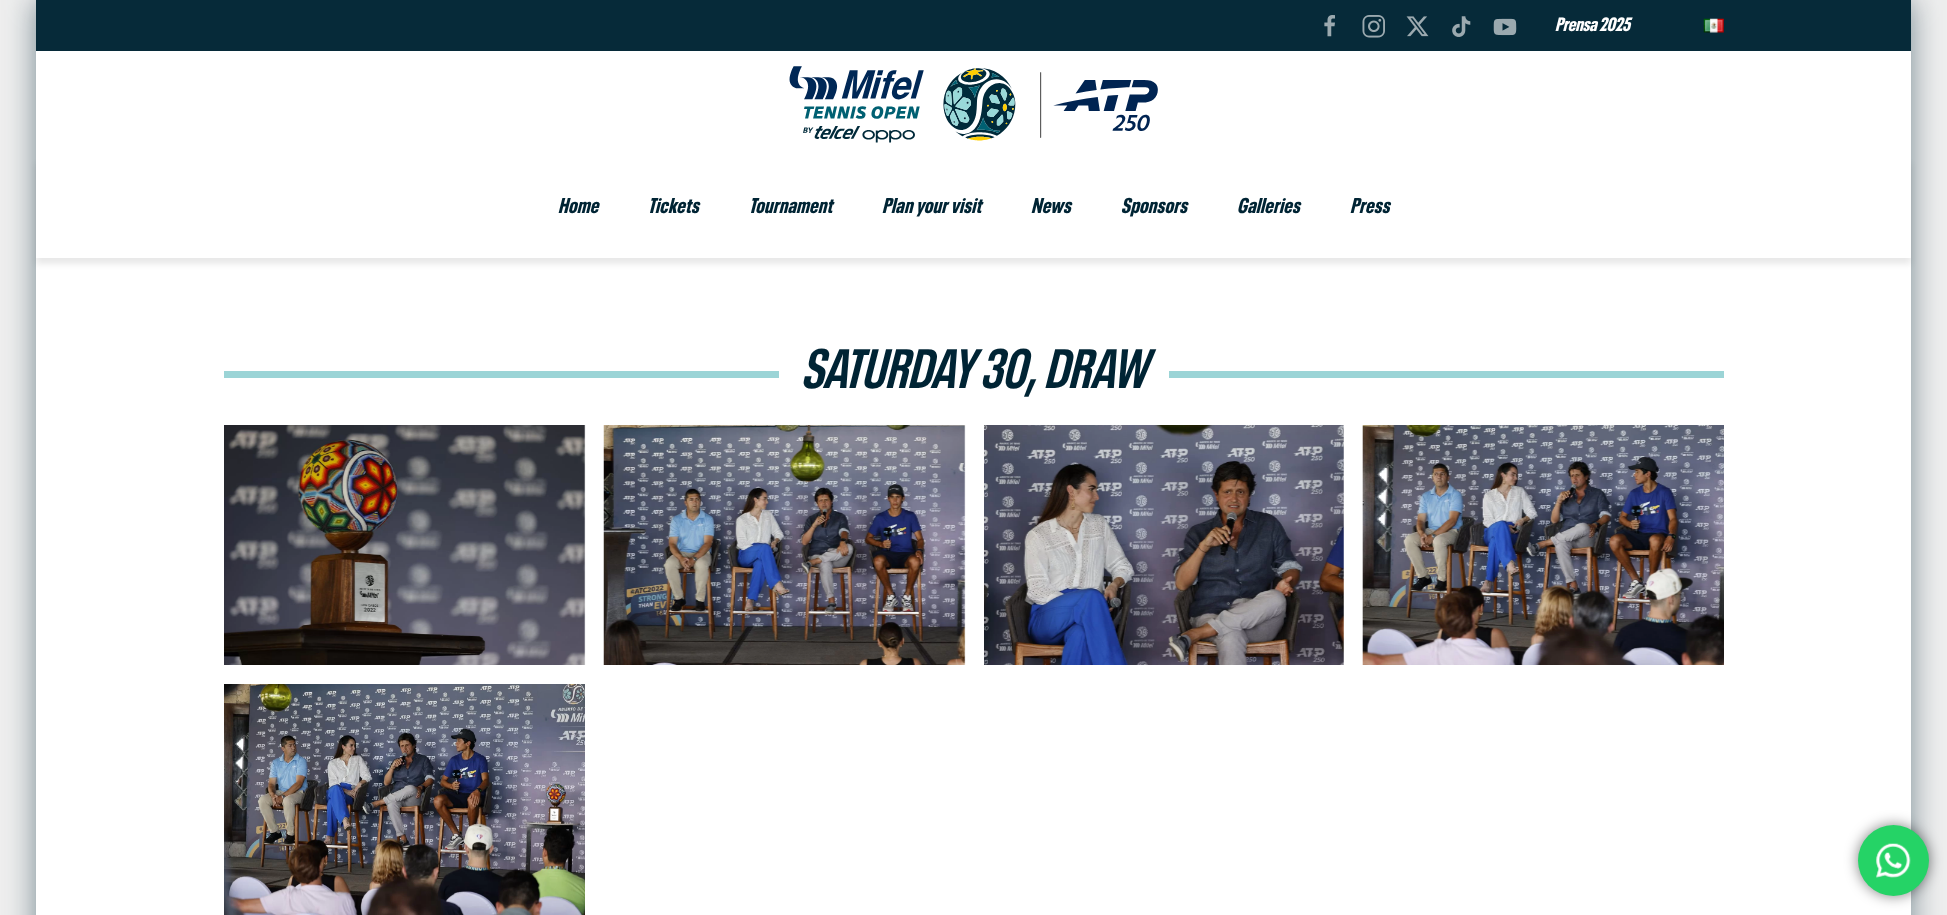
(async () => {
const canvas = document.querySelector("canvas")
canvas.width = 1947
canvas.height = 915
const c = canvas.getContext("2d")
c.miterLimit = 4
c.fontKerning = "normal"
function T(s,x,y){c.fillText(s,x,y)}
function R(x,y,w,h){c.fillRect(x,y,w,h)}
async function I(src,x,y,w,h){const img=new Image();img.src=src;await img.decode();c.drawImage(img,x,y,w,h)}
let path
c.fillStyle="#eee"
R(0,0,1947,915)
c.fillStyle="#062a3985"
c.filter="blur(15.5px)"
c.beginPath()
c.rect(36,0,1875,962)
c.fill()
c.filter="none"
c.fillStyle="#fff"
R(36,51,1875,864)
c.fillStyle="#062a39"
R(36,0,1875,51)
await I("1.png",1324,15,11,22)
await I("2.png",1362,15,23,23)
await I("3.png",1406,16,23,21)
await I("4.png",1452,16,19,21)
await I("5.png",1493,18,24,18)
c.font="italic 900 19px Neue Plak"
c.fillStyle="#fff"
T("Prensa 2025",1555,31)
await I("6.png",1703,18,21,15)
await I("7.png",789,66,369,77)
c.save()
path = new Path2D("M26 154h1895v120h-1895zm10 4h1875v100h-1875z")
c.clip(path,"evenodd")
c.fillStyle="#00000017"
c.filter="blur(3px)"
c.beginPath()
c.rect(36,164,1875,100)
c.fill()
c.filter="none"
c.restore()
c.fillStyle="#ffffffed"
R(36,167,1875,91)
c.letterSpacing="0.4px"
c.font="italic 900 21.25px Neue Plak"
c.fillStyle="#002434"
T("Home",558,213)
T("Tickets",648,213)
T("Tournament",749,213)
T("Plan your visit",882,213)
T("News",1031,213)
T("Sponsors",1121,213)
T("Galleries",1237,213)
T("Press",1350,213)
c.fillStyle="#9bd4d6"
R(224,371,555,7)
c.letterSpacing="0px"
c.font="italic bold 55px Neue Plak"
c.fillStyle="#002434"
T("SATURDAY 30, DRAW",801,388)
c.fillStyle="#9bd4d6"
R(1169,371,555,7)
await I("8.png",224,425,362,240)
await I("9.png",603,425,363,240)
await I("10.png",984,425,360,240)
await I("11.png",1362,425,362,240)
await I("12.png",224,684,361,231)
c.fillStyle="#00000080"
c.filter="blur(7px)"
c.beginPath()
c.roundRect(1858,825,71,71,35.5)
c.fill()
c.filter="none"
c.fillStyle="#25d366"
c.beginPath()
c.arc(1893.5,860.5,35.5,0,7)
c.fill()
await I("13.png",1876,843,35,35)
})()
